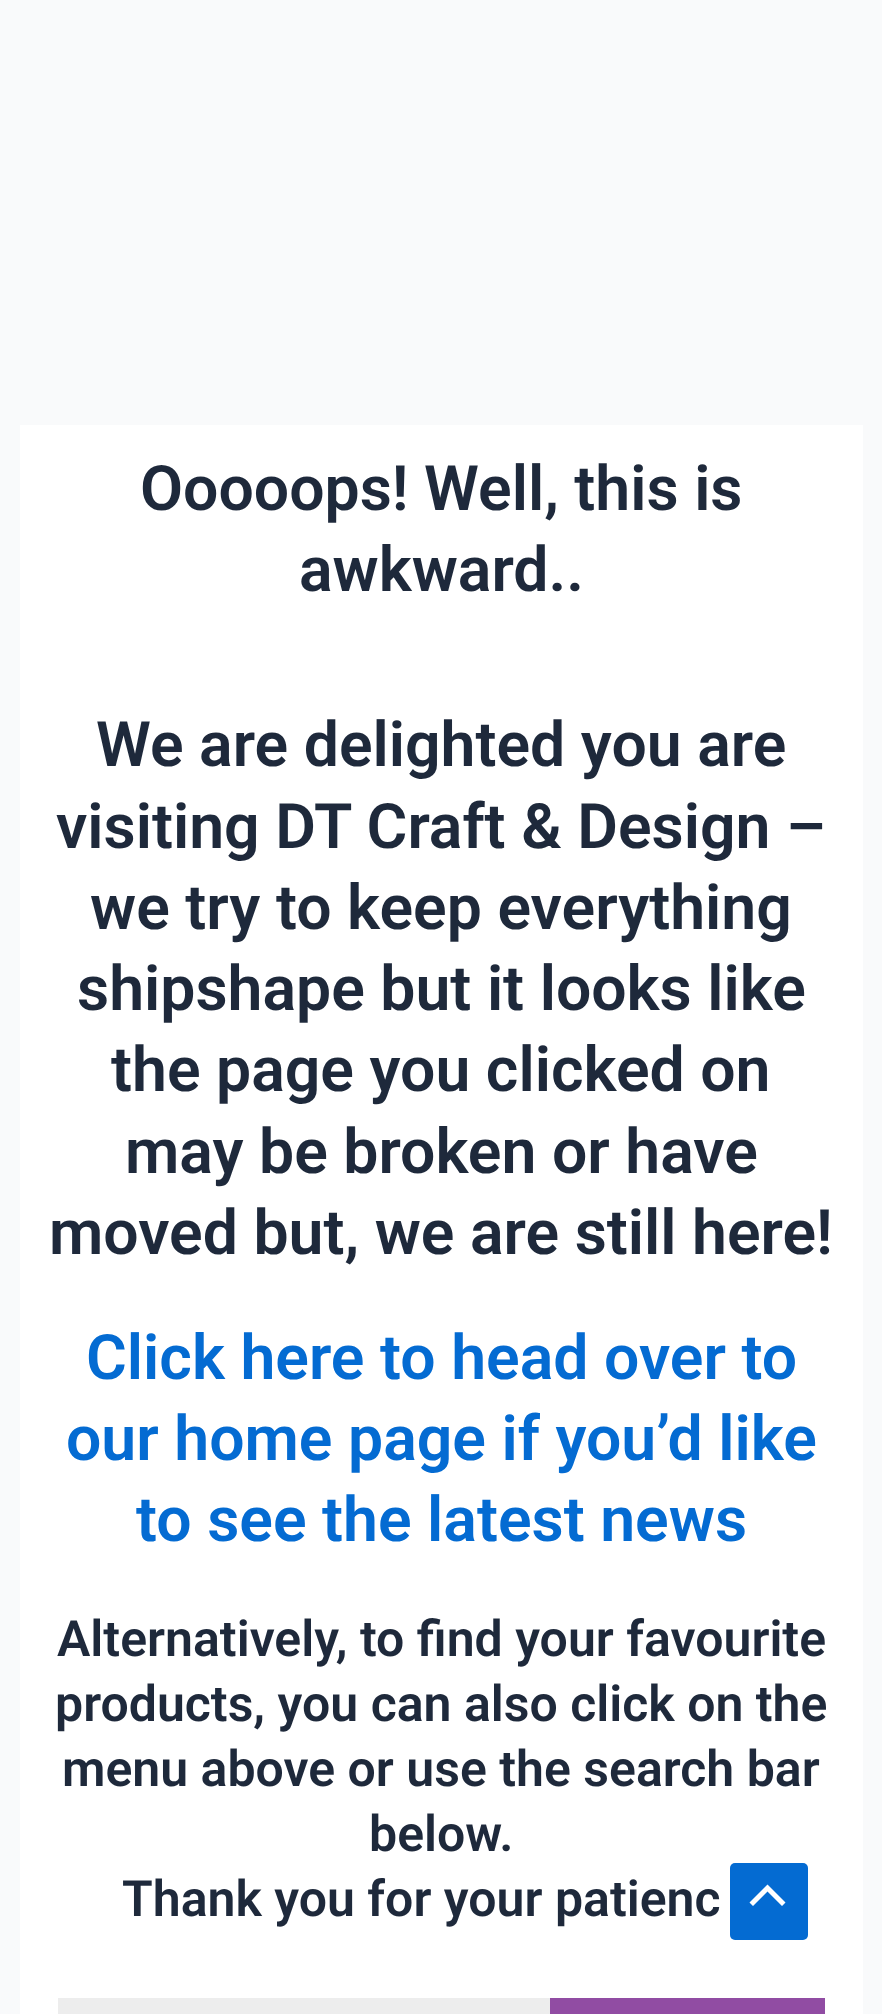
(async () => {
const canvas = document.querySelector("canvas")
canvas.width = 882
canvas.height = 2014
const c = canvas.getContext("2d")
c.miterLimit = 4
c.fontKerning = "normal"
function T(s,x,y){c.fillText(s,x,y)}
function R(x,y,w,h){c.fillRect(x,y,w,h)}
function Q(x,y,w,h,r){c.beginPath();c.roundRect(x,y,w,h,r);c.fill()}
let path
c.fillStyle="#f9fafb"
R(0,0,882,2014)
c.fillStyle="#fff"
R(20,425,843,1589)
c.font="600 62.5px Roboto"
c.fillStyle="#1e293b"
T("Ooooops! Well, this is",140,510)
T("awkward..",299,591)
T("We are delighted you are",96,766)
T("visiting DT Craft & Design –",56,848)
T("we try to keep everything",90,929)
T("shipshape but it looks like",77,1010)
T("the page you clicked on",111,1091)
T("may be broken or have",125,1173)
T("moved but, we are still here!",49,1254)
c.fillStyle="#046bd2"
T("Click here to head over to",86,1379)
T("our home page if you’d like",66,1460)
T("to see the latest news",136,1541)
c.font="600 50px Roboto"
c.fillStyle="#1e293b"
T("Alternatively, to find your favourite",57,1656)
T("products, you can also click on the",55,1721)
T("menu above or use the search bar",62,1786)
T("below.",369,1851)
T("Thank you for your patienc",122,1916)
c.fillStyle="#ededed"
R(58,1998,492,16)
c.fillStyle="#914ca3"
R(550,1998,275,16)
c.fillStyle="#046bd2"
Q(730,1863,78,77,5)
c.fillStyle="#fff"
path = new Path2D("M785.5 1902.5l-18-18l-18 18l3.5 3.5l14.5-14.5l14.5 14.5z")
c.fill(path)
})()
